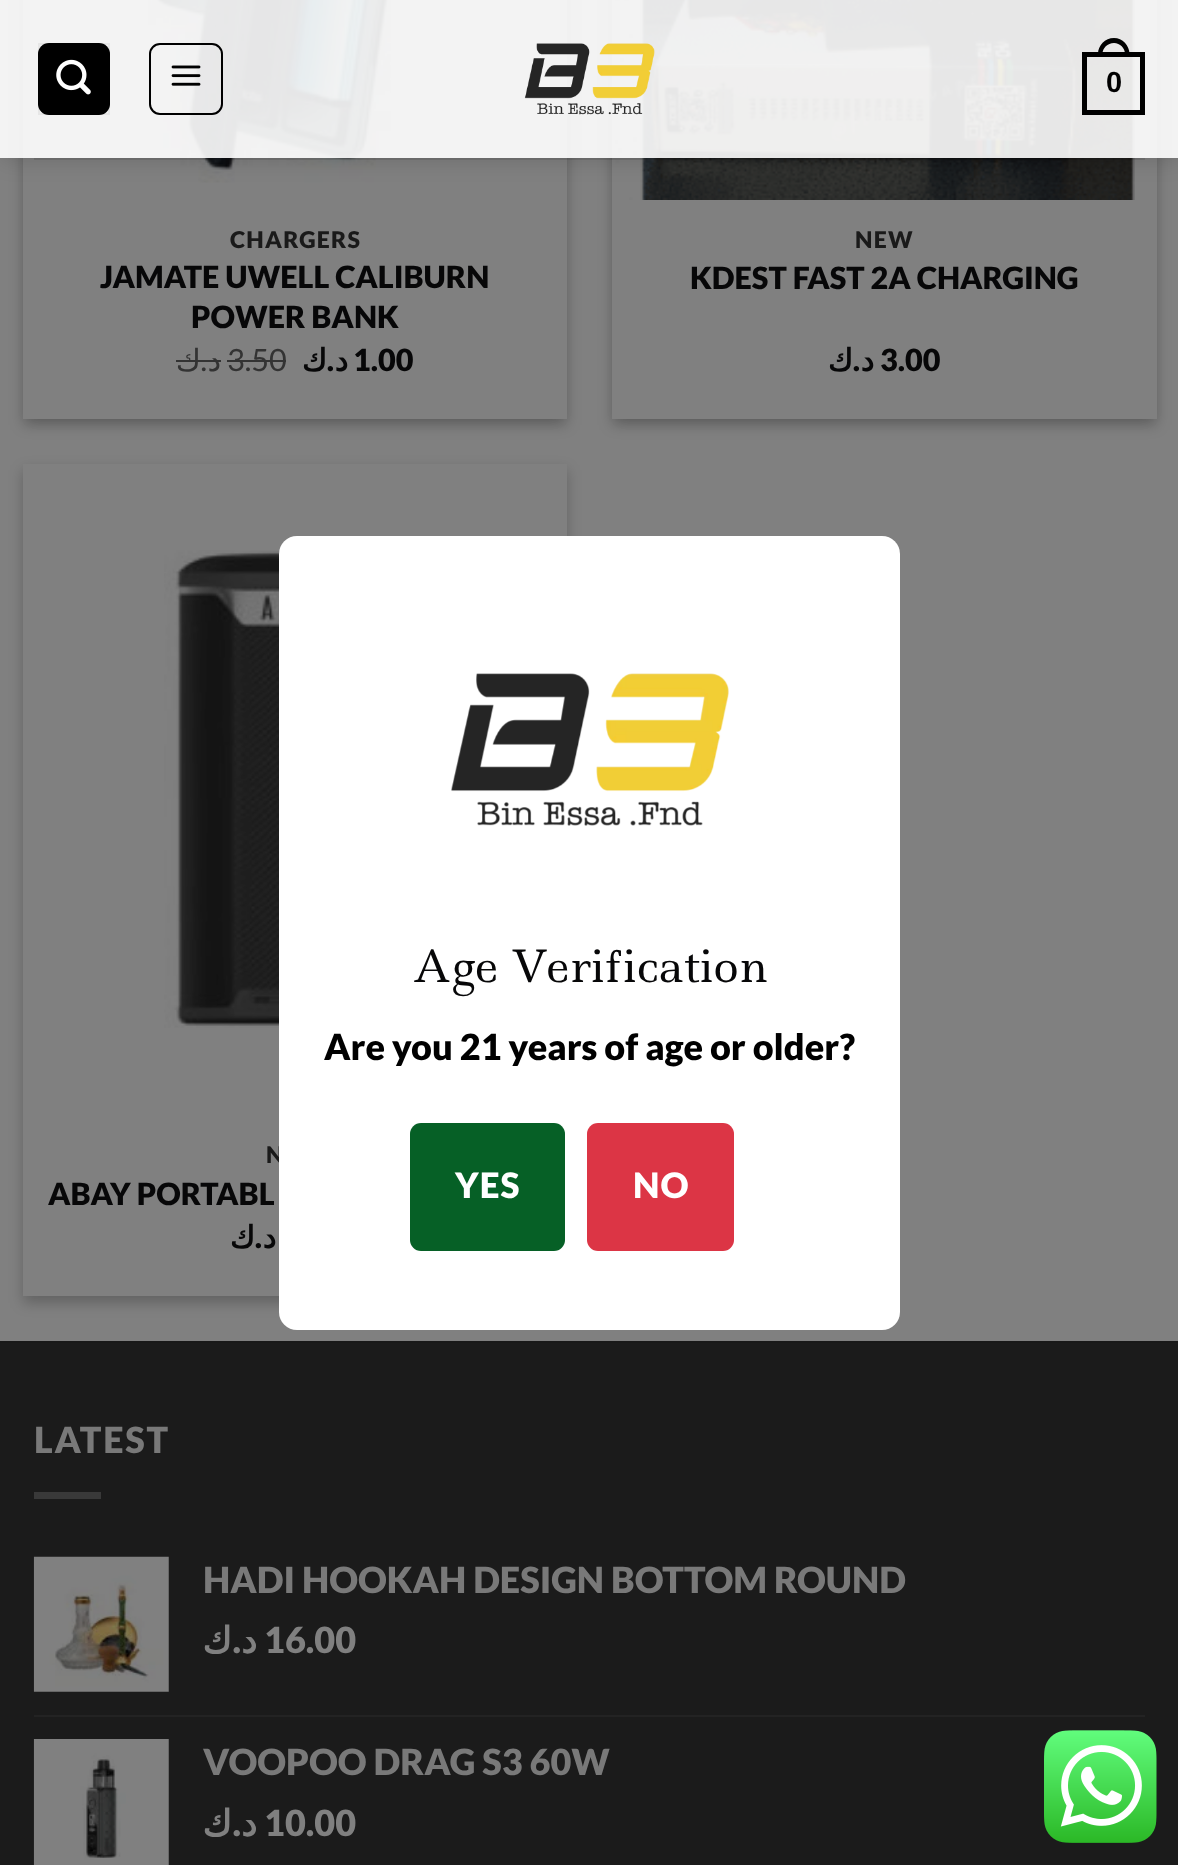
(async () => {
const canvas = document.querySelector("canvas")
canvas.width = 1178
canvas.height = 1865
const c = canvas.getContext("2d")
c.miterLimit = 4
c.fontKerning = "normal"
function T(s,x,y){c.fillText(s,x,y)}
function R(x,y,w,h){c.fillRect(x,y,w,h)}
function Q(x,y,w,h,r){c.beginPath();c.roundRect(x,y,w,h,r);c.fill()}
async function I(src,x,y,w,h){const img=new Image();img.src=src;await img.decode();c.drawImage(img,x,y,w,h)}
let path
c.fillStyle="#808080"
R(0,0,1178,1865)
c.fillStyle="#0000003b"
c.filter="blur(7px)"
c.beginPath()
c.rect(23,-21,544,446)
c.fill()
c.filter="none"
c.fillStyle="#00000029"
c.filter="blur(7px)"
c.beginPath()
c.rect(32,-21,526,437)
c.fill()
c.filter="none"
c.fillStyle="#808080"
R(23,0,544,419)
await I("4.png",148,0,243,183)
c.fillStyle="#0000003b"
c.filter="blur(7px)"
c.beginPath()
c.rect(612,-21,545,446)
c.fill()
c.filter="none"
c.fillStyle="#00000029"
c.filter="blur(7px)"
c.beginPath()
c.rect(621,-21,527,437)
c.fill()
c.filter="none"
c.fillStyle="#808080"
R(612,0,545,419)
await I("5.png",615,0,520,200)
c.save()
path = new Path2D("M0 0h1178v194h-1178zm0 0h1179v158h-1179z")
c.clip(path,"evenodd")
c.fillStyle="#00000026"
c.filter="blur(11px)"
c.beginPath()
c.rect(2,2,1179,158)
c.fill()
c.filter="none"
c.restore()
c.fillStyle="#ffffffe6"
R(0,0,1178,158)
c.fillStyle="#000"
Q(38,43,72,72,11)
c.strokeStyle="#0000000d"
c.lineWidth=2
c.strokeRect(39,44,70,70)
await I("1.png",56,59,35,36)
c.beginPath()
c.roundRect(150,44,72,70,10)
c.strokeStyle="#000"
c.stroke()
await I("2.png",171,65,30,21)
await I("3.png",524,43,131,72)
c.lineWidth=5
c.strokeRect(1084.5,54.5,58,58)
path = new Path2D("M1114 38c8.5 0 15.5 7.5 15.5 16v2h-31.5v-2c0-8.5 7-16 16-16zm0 5c6 0 11 5 11 11v2h-22.5v-2c0-6 5-11 11.5-11z")
c.fill(path,"evenodd")
c.font="bold 29px Liberation Sans"
T("0",1106,92)
c.fillStyle="#0000001a"
R(34,158,1111,2)
c.letterSpacing="1.25px"
c.font="900 23px Lato"
c.fillStyle="#1a1a1a"
T("CHARGERS",230,248)
c.letterSpacing="0px"
c.font="900 30.6px Lato"
c.fillStyle="#070708"
T("JAMATE UWELL CALIBURN",100,288)
T("POWER BANK",191,328)
c.direction="rtl"
c.font="30.6px DejaVu Sans"
c.fillStyle="#333"
T("ك",201,371)
R(176,360,45,2)
c.font="30.6px Lato"
T(".",207,371)
c.font="30.6px DejaVu Sans"
T("د",221,371)
c.direction="ltr"
c.font="30.6px Lato"
T("3.50",227,371)
R(227,360,59,2)
c.direction="rtl"
c.font="bold 30.6px DejaVu Sans"
c.fillStyle="#070708"
T("ك",327,371)
c.font="900 30.6px Lato"
T(".",334,371)
c.font="bold 30.6px DejaVu Sans"
T("د",348,371)
c.direction="ltr"
c.font="900 30.6px Lato"
T("1.00",353,371)
c.letterSpacing="1.25px"
c.font="900 23px Lato"
c.fillStyle="#1a1a1a"
T("NEW",855,248)
c.letterSpacing="0px"
c.font="900 30.6px Lato"
c.fillStyle="#070708"
T("KDEST FAST 2A CHARGING",690,289)
c.direction="rtl"
c.font="bold 30.6px DejaVu Sans"
T("ك",853,371)
c.font="900 30.6px Lato"
T(".",860,371)
c.font="bold 30.6px DejaVu Sans"
T("د",874,371)
c.direction="ltr"
c.font="900 30.6px Lato"
T("3.00",880,371)
c.save()
path = new Path2D("M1 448h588v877h-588zm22 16h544v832h-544z")
c.clip(path,"evenodd")
c.fillStyle="#0000003b"
c.filter="blur(7px)"
c.beginPath()
c.rect(23,470,544,833)
c.fill()
c.filter="none"
c.restore()
await I("6.png",164,550,116,478)
c.letterSpacing="1.25px"
c.font="900 23px Lato"
c.fillStyle="#1a1a1a"
T("N",266,1163)
c.letterSpacing="0px"
c.font="900 30.6px Lato"
c.fillStyle="#070708"
T("ABAY PORTABL",48,1205)
c.direction="rtl"
c.font="bold 30.6px DejaVu Sans"
T("ك",255,1248)
c.font="900 30.6px Lato"
T(".",262,1248)
c.font="bold 30.6px DejaVu Sans"
T("د",276,1248)
c.fillStyle="#1b1b1b"
R(0,1343,1178,522)
c.fillStyle="#191919"
R(0,1341,1178,2)
c.letterSpacing="1.75px"
c.direction="ltr"
c.font="900 36px Lato"
c.fillStyle="#797979"
T("LATEST",34,1453)
c.fillStyle="#393939"
R(34,1492,67,7)
await I("7.png",33,1556,136,136)
c.letterSpacing="0px"
c.fillStyle="#797979"
T("HADI HOOKAH DESIGN BOTTOM ROUND",203,1593)
c.direction="rtl"
c.font="bold 36px DejaVu Sans"
c.fillStyle="#808080"
T("ك",232,1653)
c.font="900 36px Lato"
T(".",241,1653)
c.font="bold 36px DejaVu Sans"
T("د",257,1653)
c.direction="ltr"
c.font="900 36px Lato"
T("16.00",264,1653)
c.fillStyle="#232323"
R(34,1715,1111,2)
await I("8.png",33,1739,136,126)
c.fillStyle="#797979"
T("VOOPOO DRAG S3 60W",203,1775)
c.direction="rtl"
c.font="bold 36px DejaVu Sans"
c.fillStyle="#808080"
T("ك",232,1836)
c.font="900 36px Lato"
T(".",241,1836)
c.font="bold 36px DejaVu Sans"
T("د",257,1836)
c.direction="ltr"
c.font="900 36px Lato"
T("10.00",264,1836)
c.fillStyle="#fff"
Q(279,536,621,794,18)
await I("9.png",451,673,278,153)
c.font="43.25px Ledger"
c.fillStyle="#070708"
T("Age Verification",412,982)
c.font="900 36px Lato"
c.fillStyle="#000"
T("Are you 21 years of age or older?",324,1060)
c.fillStyle="#066026"
Q(410,1123,155,128,11)
c.letterSpacing="1px"
c.font="900 35px Lato"
c.fillStyle="#fff"
T("YES",455,1198)
c.fillStyle="#dc3545"
Q(587,1123,147,128,11)
c.fillStyle="#fff"
T("NO",633,1198)
await I("10.png",1044,1730,113,113)
})()
